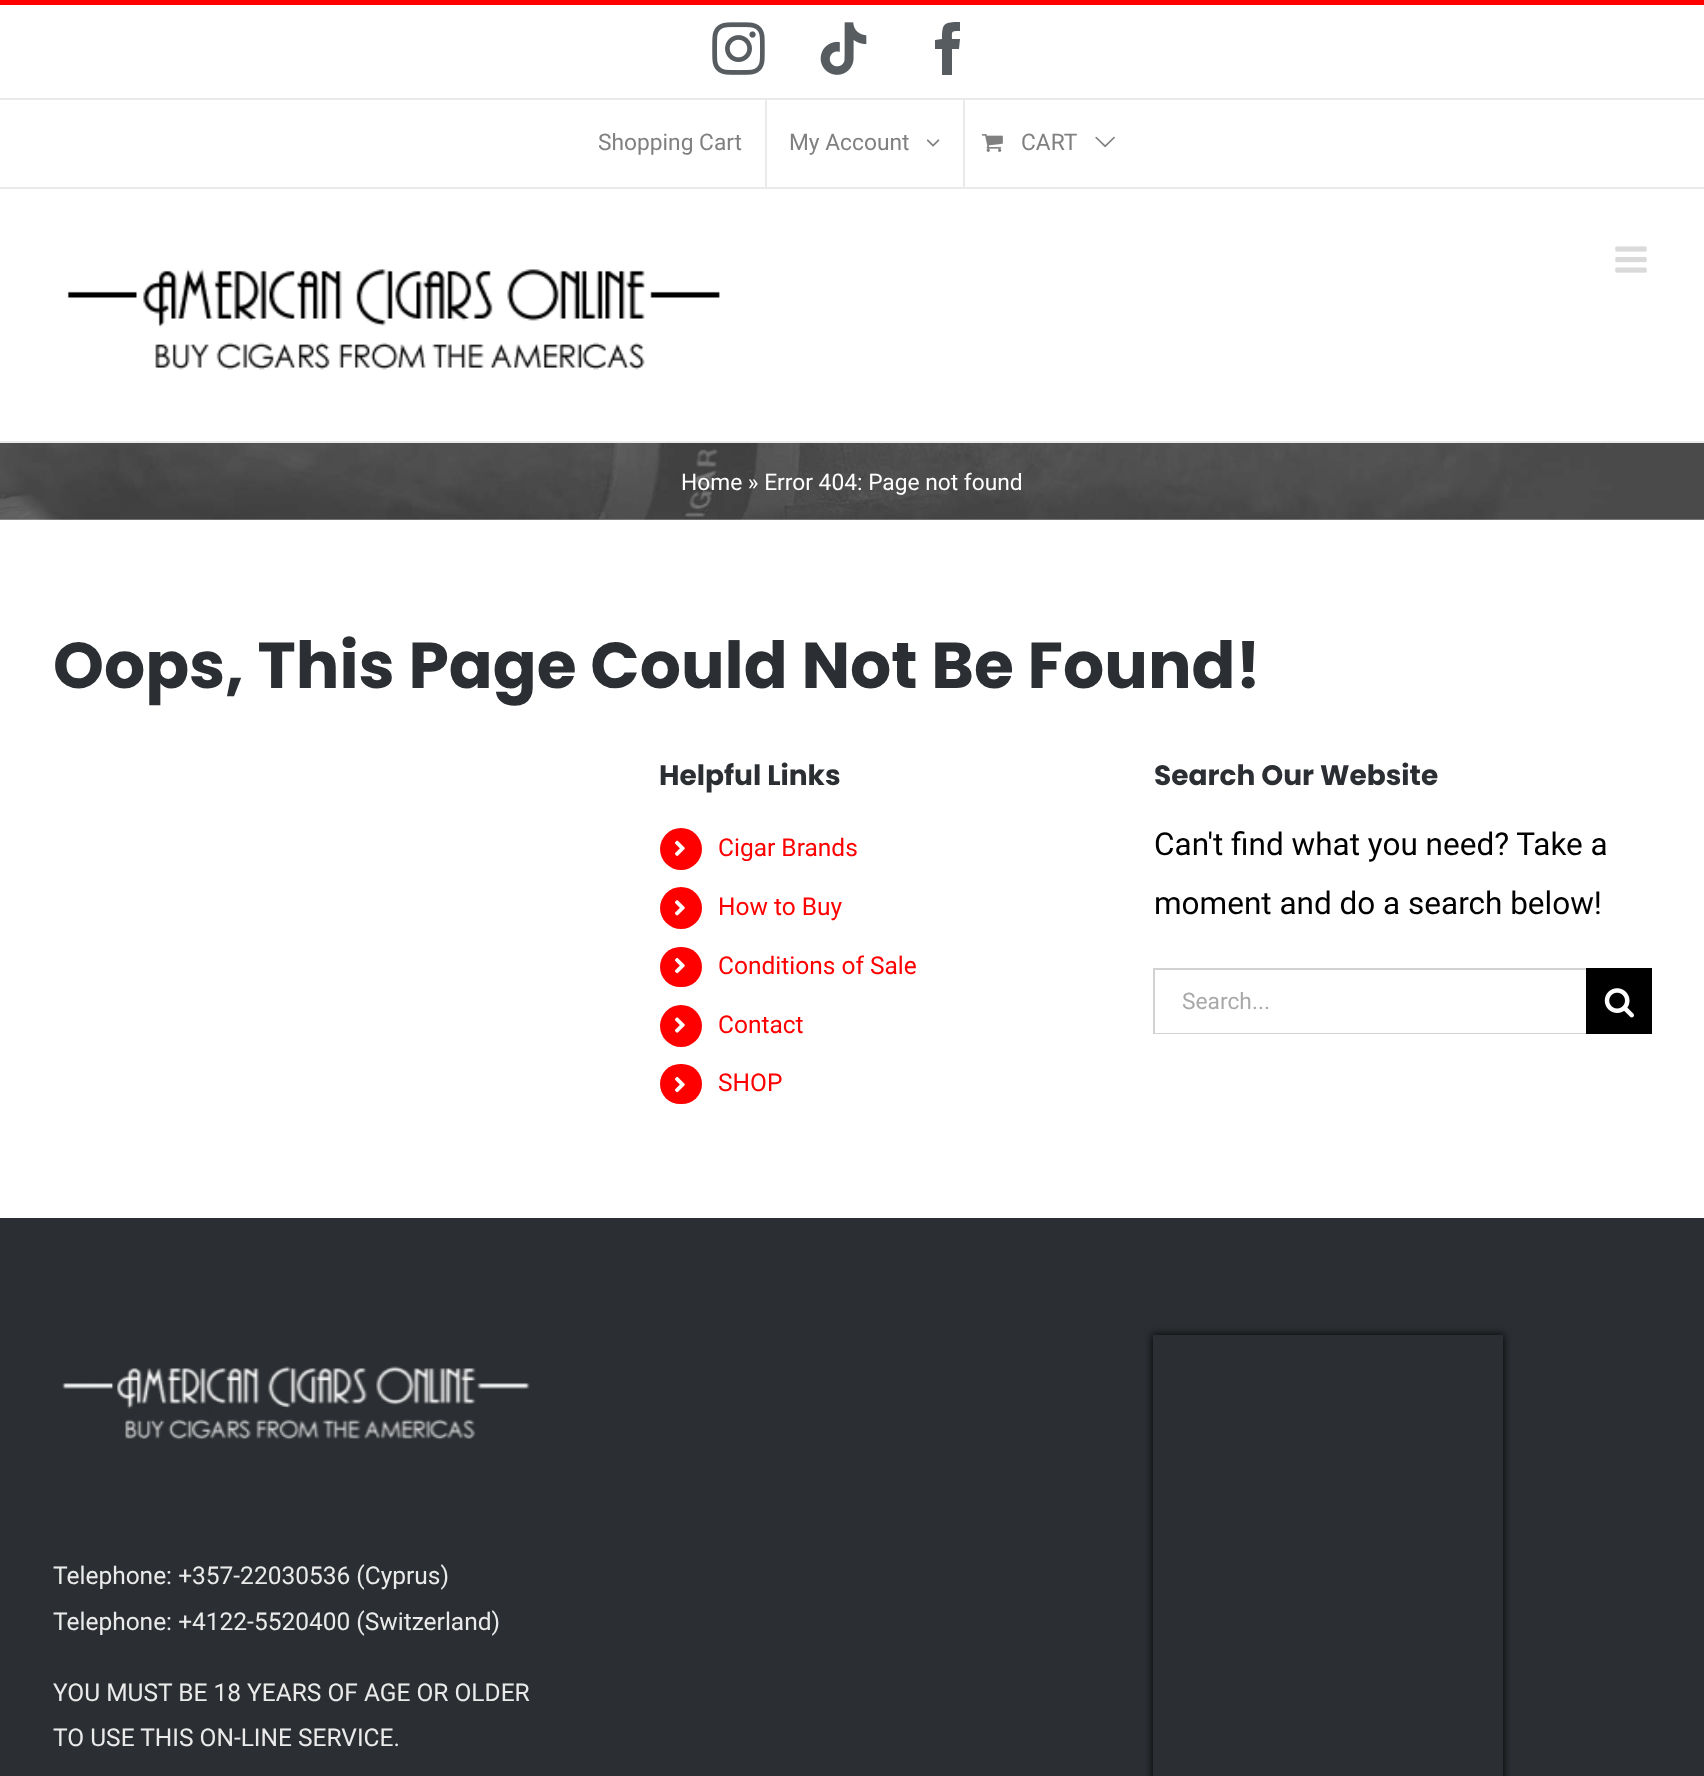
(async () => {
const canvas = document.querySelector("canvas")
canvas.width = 1704
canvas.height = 1776
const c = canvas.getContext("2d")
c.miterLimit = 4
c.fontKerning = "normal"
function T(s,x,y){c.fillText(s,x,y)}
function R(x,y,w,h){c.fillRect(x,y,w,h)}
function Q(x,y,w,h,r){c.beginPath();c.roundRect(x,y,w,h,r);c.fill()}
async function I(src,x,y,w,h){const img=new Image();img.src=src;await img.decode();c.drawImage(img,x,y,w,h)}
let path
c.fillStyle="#fff"
R(0,0,1704,1776)
c.fillStyle="#f00"
R(0,0,1704,5)
c.fillStyle="#eaeaea"
R(0,187,1704,2)
R(0,98,1704,2)
await I("1.png",712,22,53,53)
await I("2.png",820,22,47,53)
c.fillStyle="#575c61"
path = new Path2D("M952 75h-10v-26h-7v-9l7-1c0-16 2-17 18-17v9c-9 0-8 0-8 8h8l-1 10h-7z")
c.fill(path)
c.font="22.75px Roboto"
c.fillStyle="#808080"
T("Shopping Cart",598,150)
c.fillStyle="#eaeaea"
R(765,100,2,87)
c.fillStyle="#808080"
T("My Account",789,150)
await I("3.png",926,139,14,8)
c.fillStyle="#eaeaea"
R(963,100,2,87)
await I("4.png",981,134,22,18)
c.fillStyle="#808080"
T("CART",1021,150)
await I("5.png",1095,136,20,12)
c.fillStyle="#eaeaea"
R(0,441,1704,2)
await I("6.png",1615,246,32,27)
await I("7.png",67,269,653,101)
await I("8.png",0,443,1704,77)
c.fillStyle="#fff"
T("Home » Error 404: Page not found",681,490)
c.font="bold 64.75px Poppins"
c.fillStyle="#2b2e32"
T("Oops, This Page Could Not Be Found!",53,688)
c.font="bold 28px Poppins"
T("Helpful Links",659,785)
c.fillStyle="#f00"
c.beginPath()
c.arc(681,849,21,0,7)
c.fill()
await I("9.png",675,840,10,16)
c.font="24.5px Roboto"
T("Cigar Brands",718,856)
c.beginPath()
c.arc(681,908,21,0,7)
c.fill()
await I("10.png",675,900,10,16)
T("How to Buy",718,915)
Q(660,947,42,40,20)
await I("11.png",675,957,10,17)
T("Conditions of Sale",718,974)
c.beginPath()
c.arc(681,1026,21,0,7)
c.fill()
await I("12.png",675,1017,10,16)
T("Contact",718,1033)
Q(660,1064,42,40,20)
await I("11.png",675,1076,10,17)
T("SHOP",718,1091)
c.font="bold 28px Poppins"
c.fillStyle="#2b2e32"
T("Search Our Website",1154,785)
c.font="31.5px Roboto"
c.fillStyle="#000"
T("Can't find what you need? Take a",1154,855)
T("moment and do a search below!",1154,914)
c.fillStyle="#d2d2d2"
R(1153,968,433,2)
R(1153,1033,433,1)
R(1153,968,2,66)
c.font="22.75px Roboto"
c.fillStyle="#aaa9a9"
T("Search...",1182,1009)
c.fillStyle="#000"
R(1586,968,66,66)
await I("13.png",1604,988,30,30)
c.fillStyle="#2b2e32"
R(0,1218,1704,558)
await I("14.png",62,1366,468,74)
c.font="24.5px Roboto"
c.fillStyle="#eaeaea"
T("Telephone: +357-22030536 (Cyprus)",53,1584)
T("Telephone: +4122-5520400 (Switzerland)",53,1630)
T("YOU MUST BE 18 YEARS OF AGE OR OLDER",53,1701)
T("TO USE THIS ON-LINE SERVICE.",53,1746)
c.save()
path = new Path2D("M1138 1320h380v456h-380zm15 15h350v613h-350z")
c.clip(path,"evenodd")
c.fillStyle="#000"
c.filter="blur(4.5px)"
c.beginPath()
c.rect(1153,1335,350,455)
c.fill()
c.filter="none"
c.restore()
})()
